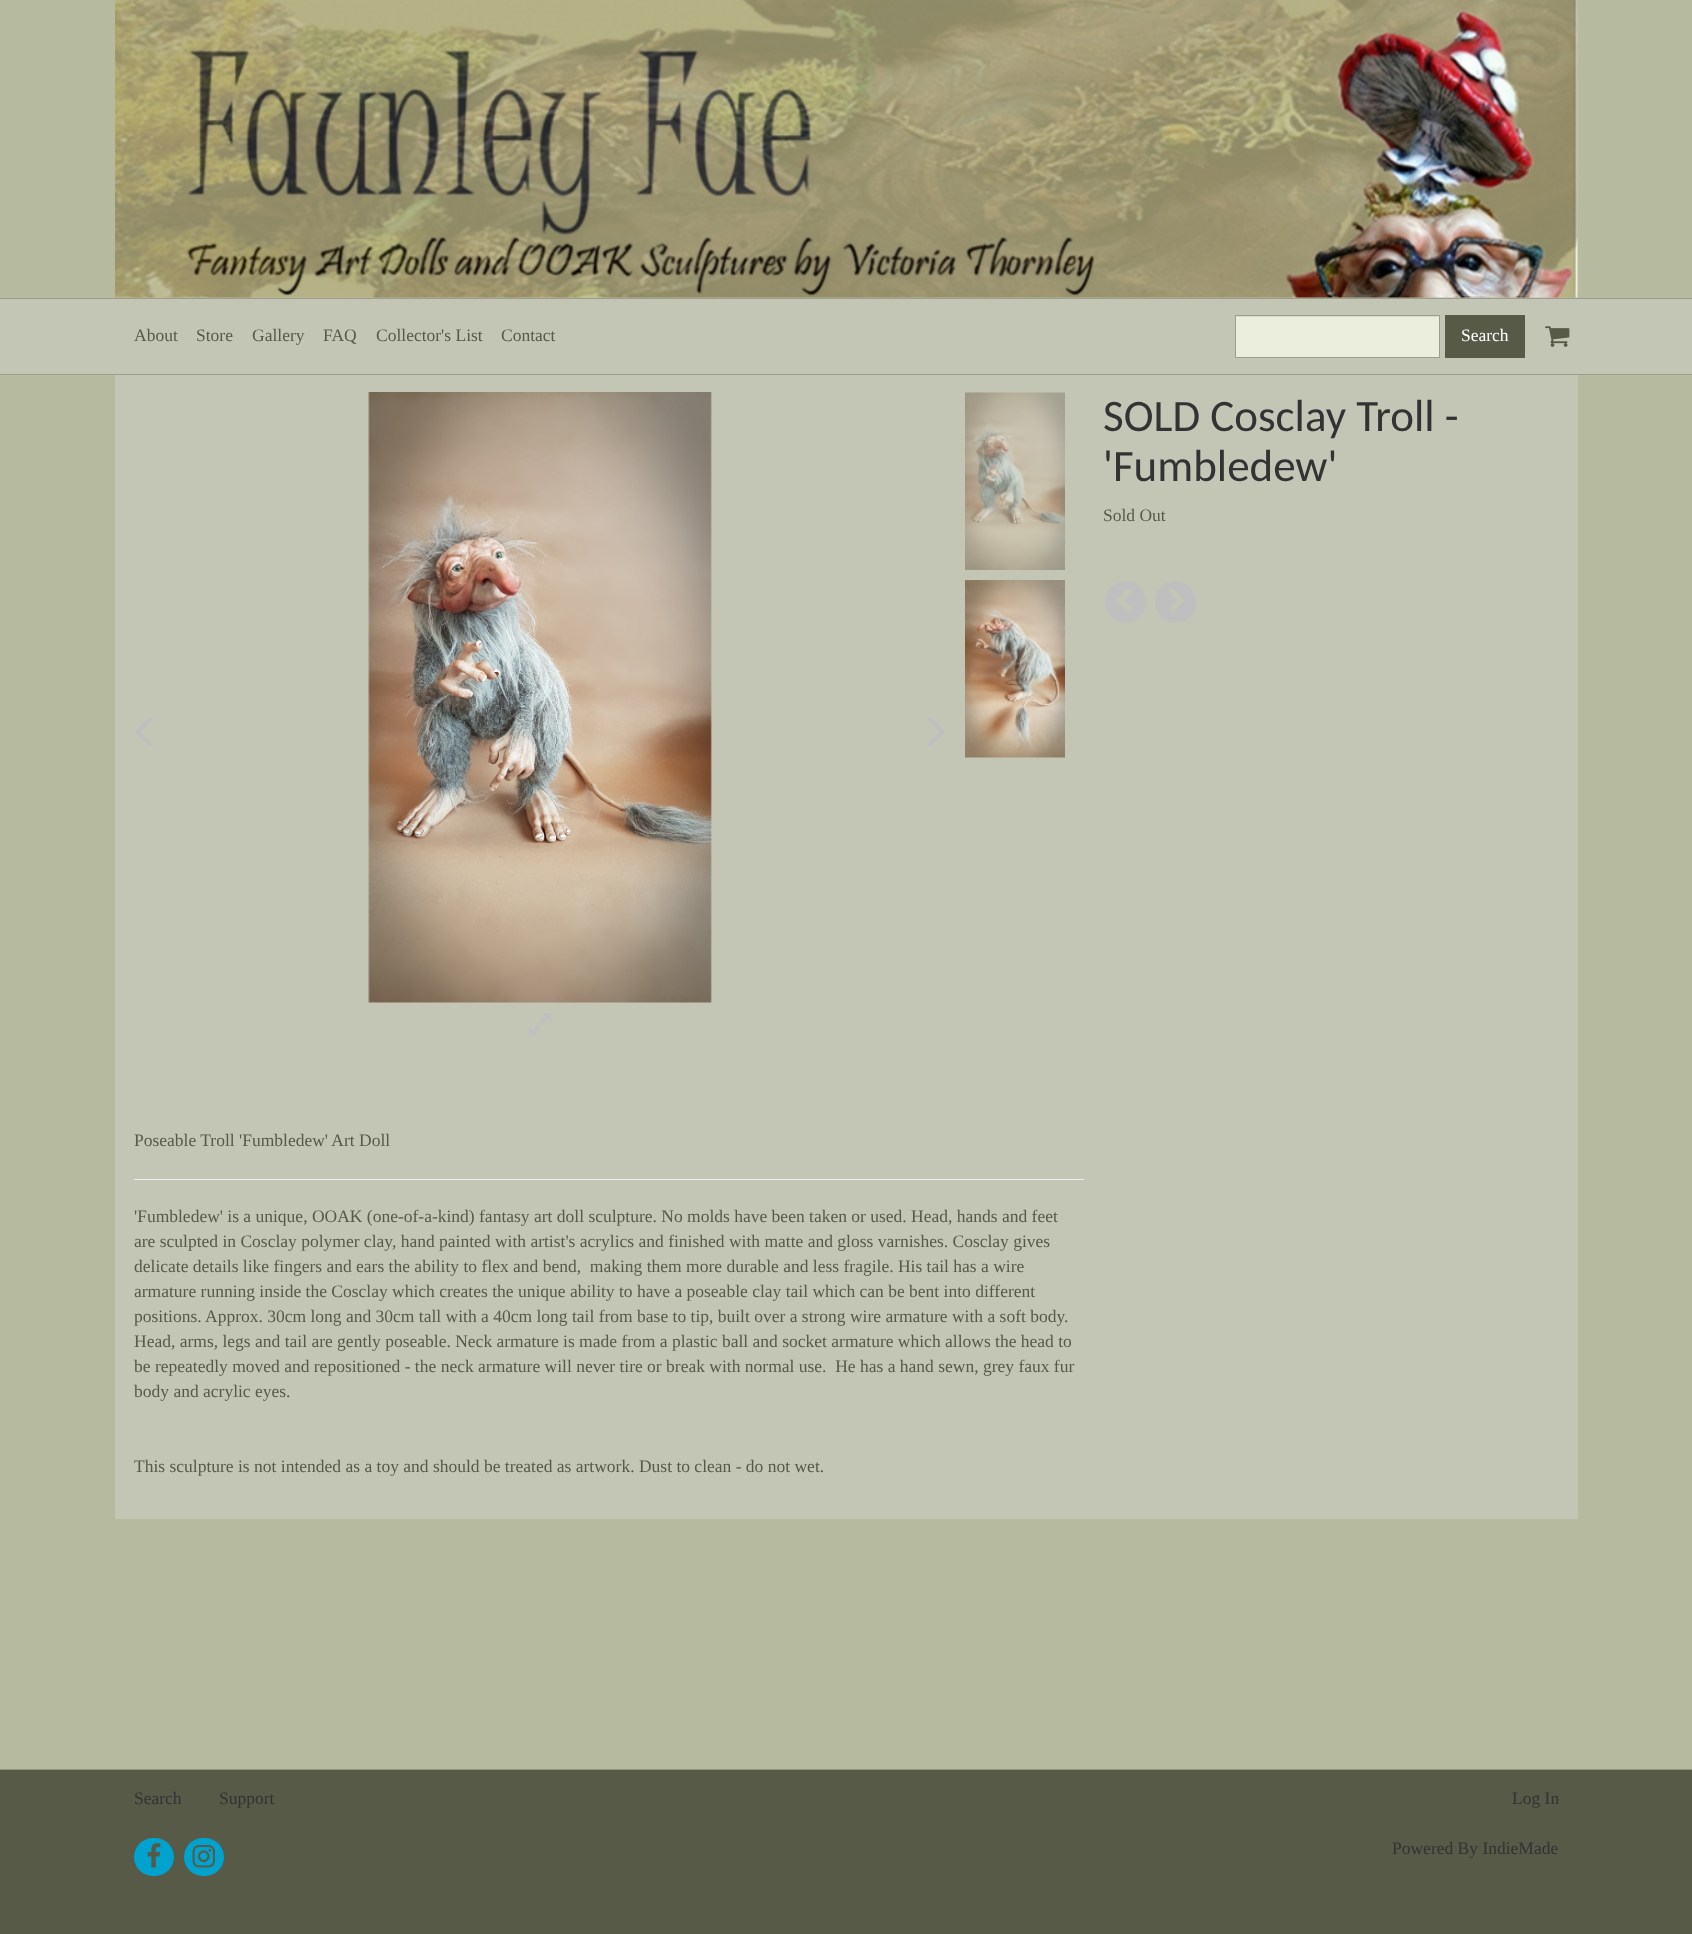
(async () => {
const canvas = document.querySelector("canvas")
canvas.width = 1692
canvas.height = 1934
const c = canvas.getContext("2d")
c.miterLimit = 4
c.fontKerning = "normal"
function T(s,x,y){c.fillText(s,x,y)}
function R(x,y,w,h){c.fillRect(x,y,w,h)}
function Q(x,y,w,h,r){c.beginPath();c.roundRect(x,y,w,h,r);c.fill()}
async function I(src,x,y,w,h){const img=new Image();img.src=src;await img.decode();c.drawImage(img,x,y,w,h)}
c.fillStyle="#b6bb9f"
R(0,0,1692,1934)
await I("1.png",115,0,1463,298)
c.fillStyle="#c3c6b5"
R(0,299,1692,75)
c.fillStyle="#9b9e8d"
R(0,298,1692,1)
R(0,374,1692,1)
c.font="17.5px Liberation Serif"
c.fillStyle="#575a47"
T("About",134,341)
T("Store",196,341)
T("Gallery",252,341)
T("FAQ",323,341)
T("Collector's List",376,341)
T("Contact",501,341)
c.fillStyle="#ebeedd"
R(1236,317,203,40)
c.fillStyle="#d9dccc"
R(1236,316,203,1)
c.strokeStyle="#9b9e8d"
c.strokeRect(1235.5,315.5,204,42)
c.fillStyle="#575a47"
R(1445,315,80,43)
c.fillStyle="#fff"
T("Search",1461,341)
await I("2.png",1545,326,25,21)
c.fillStyle="#c3c6b5"
R(115,375,1463,1144)
await I("3.png",135,717,17,30)
await I("4.png",368,392,344,611)
await I("5.png",529,1013,22,23)
await I("6.png",928,717,17,30)
await I("7.png",965,392,100,178)
await I("8.png",965,580,100,178)
c.font="45px Carlito"
c.fillStyle="#333"
T("SOLD Cosclay Troll -",1103,431)
T("'Fumbledew'",1103,481)
c.font="17.5px Liberation Serif"
c.fillStyle="#575a47"
T("Sold Out",1103,521)
c.fillStyle="#bfbfbf"
Q(1105,581,41,42,20.5)
await I("9.png",1117,588,15,24)
Q(1155,581,41,42,20.5)
await I("10.png",1169,589,16,23)
c.fillStyle="#575a47"
T("Poseable Troll 'Fumbledew' Art Doll",134,1146)
c.fillStyle="#eee"
R(134,1179,950,1)
c.fillStyle="#575a47"
T("'Fumbledew' is a unique, OOAK (one-of-a-kind) fantasy art doll sculpture. No molds have been taken or used. Head, hands and feet",134,1222)
T("are sculpted in Cosclay polymer clay, hand painted with artist's acrylics and finished with matte and gloss varnishes. Cosclay gives",134,1247)
T("delicate details like fingers and ears the ability to flex and bend,  making them more durable and less fragile. His tail has a wire",134,1272)
T("armature running inside the Cosclay which creates the unique ability to have a poseable clay tail which can be bent into different",134,1297)
T("positions. Approx. 30cm long and 30cm tall with a 40cm long tail from base to tip, built over a strong wire armature with a soft body.",134,1322)
T("Head, arms, legs and tail are gently poseable. Neck armature is made from a plastic ball and socket armature which allows the head to",134,1347)
T("be repeatedly moved and repositioned - the neck armature will never tire or break with normal use.  He has a hand sewn, grey faux fur",134,1372)
T("body and acrylic eyes.",134,1397)
T("This sculpture is not intended as a toy and should be treated as artwork. Dust to clean - do not wet.",134,1472)
R(0,1770,1692,164)
c.fillStyle="#939683"
R(0,1769,1692,1)
c.fillStyle="#333"
T("Search",134,1804)
T("Support",219,1804)
T("Log In",1512,1804)
c.fillStyle="#00a3ce"
Q(134,1838,40,38,19)
await I("11.png",147,1843,14,25)
Q(184,1838,40,38,19)
await I("12.png",192,1845,23,23)
c.fillStyle="#333"
T("Powered By IndieMade",1392,1854)
})()
